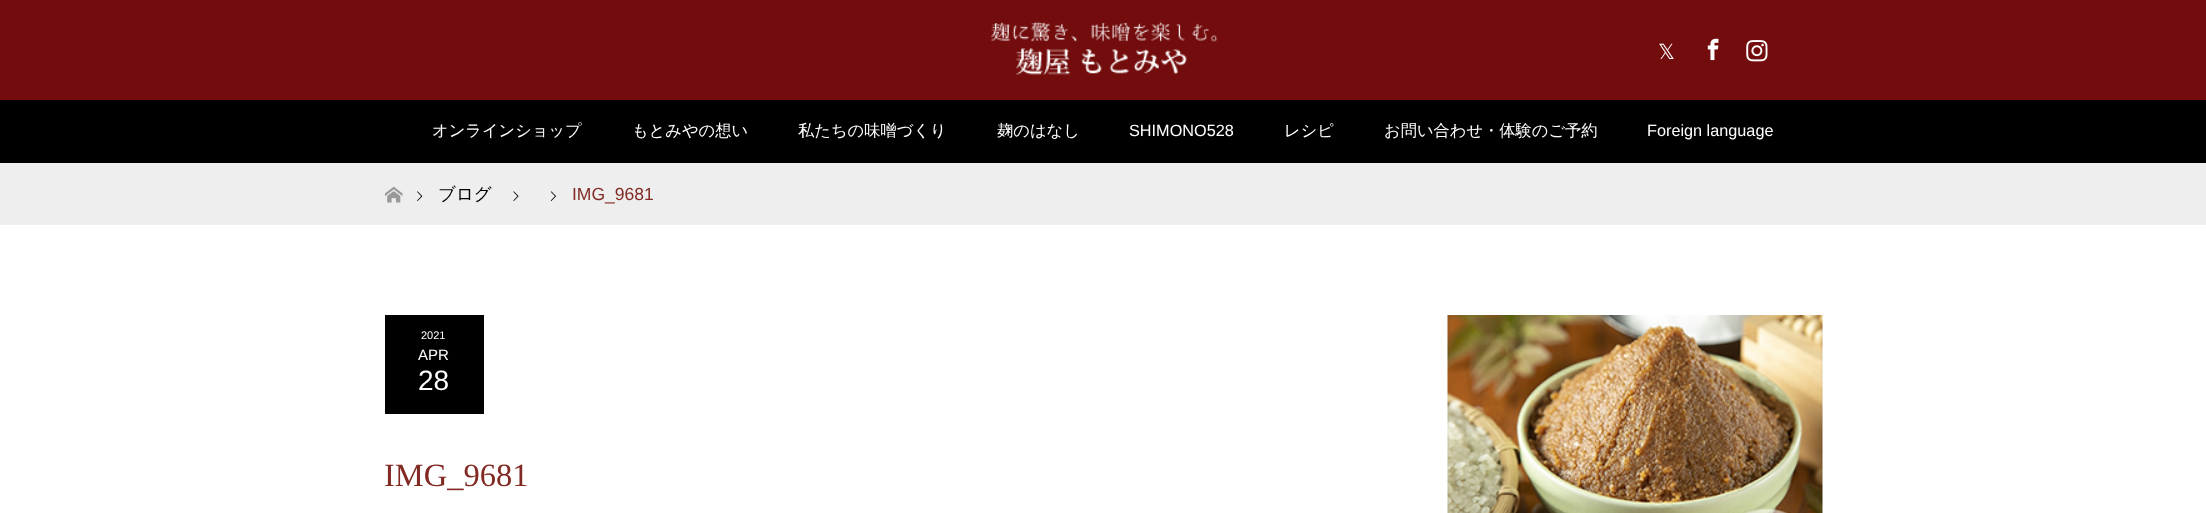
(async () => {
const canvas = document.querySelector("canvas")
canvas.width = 2206
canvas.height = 513
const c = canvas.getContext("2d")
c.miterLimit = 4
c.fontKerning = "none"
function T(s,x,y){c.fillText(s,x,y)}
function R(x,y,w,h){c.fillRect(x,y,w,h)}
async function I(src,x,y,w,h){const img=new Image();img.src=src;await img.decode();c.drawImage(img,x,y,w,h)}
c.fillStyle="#fff"
R(0,0,2206,513)
c.fillStyle="#730c0c"
R(0,0,2206,100)
await I("1.png",991,21,227,54)
c.font="21px DejaVu Sans"
c.fillStyle="#fff"
T("𝕏",1658,59)
await I("2.png",1707,38,12,23)
await I("3.png",1746,40,22,22)
c.fillStyle="#000"
R(0,100,2206,63)
c.font="500 16.25px WenQuanYi Zen Hei"
c.fillStyle="#fff"
T("オンラインショップ",432,136)
T("もとみやの想い",632,136)
T("私たちの味噌づくり",798,136)
T("麹のはなし",997,136)
c.font="16.25px Liberation Sans"
T("SHIMONO528",1129,136)
c.font="500 16.25px WenQuanYi Zen Hei"
T("レシピ",1284,136)
T("お問い合わせ・体験のご予約",1384,136)
c.font="16.25px Liberation Sans"
T("Foreign language",1647,136)
c.fillStyle="#eee"
R(0,163,2206,62)
await I("4.png",385,186,18,17)
await I("5.png",417,191,6,10)
c.font="500 17.5px WenQuanYi Zen Hei"
c.fillStyle="#000"
T("ブログ",438,200)
await I("6.png",513,191,6,10)
await I("7.png",550,191,6,10)
c.font="17.5px Liberation Sans"
c.fillStyle="#822923"
T("IMG_9681",572,200)
c.fillStyle="#000"
R(385,315,99,99)
c.font="11px Liberation Sans"
c.fillStyle="#fff"
T("2021",421,339)
c.font="15px Liberation Sans"
T("APR",418,360)
c.font="28px Liberation Sans"
T("28",418,390)
c.font="32.5px Liberation Serif"
c.fillStyle="#822923"
T("IMG_9681",384,486)
await I("8.png",1447,315,376,198)
})()
